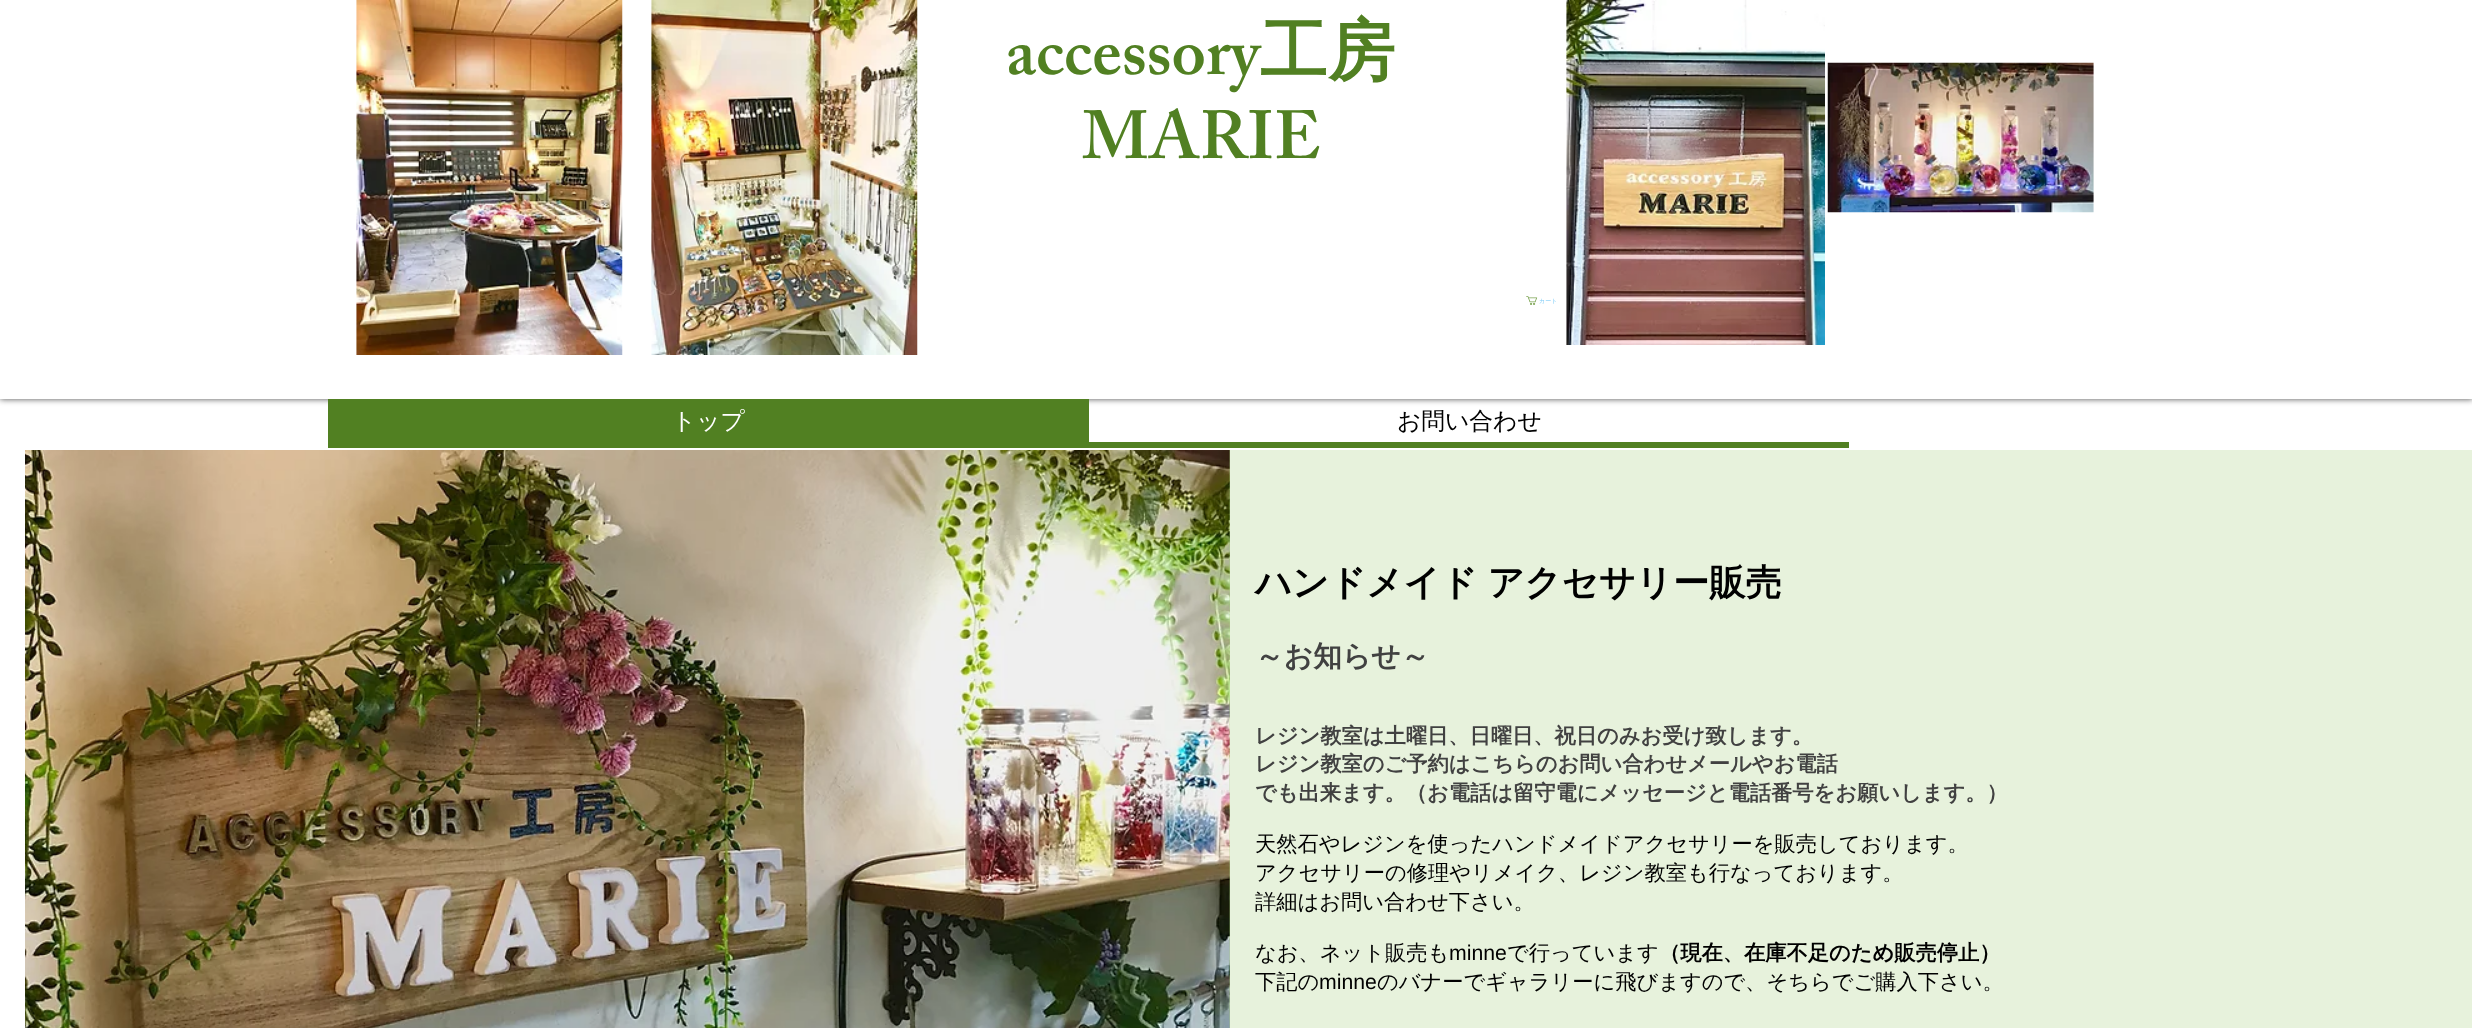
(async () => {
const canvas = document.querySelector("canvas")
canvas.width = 2472
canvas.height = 1028
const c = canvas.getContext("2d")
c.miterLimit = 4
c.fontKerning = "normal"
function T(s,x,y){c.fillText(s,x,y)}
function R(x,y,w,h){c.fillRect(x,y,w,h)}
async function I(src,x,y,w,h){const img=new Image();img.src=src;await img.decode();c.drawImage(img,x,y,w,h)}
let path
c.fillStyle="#fff"
R(0,0,2472,1028)
c.fillStyle="#000000b3"
c.filter="blur(3px)"
c.beginPath()
c.rect(0,0,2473,399)
c.fill()
c.filter="none"
c.fillStyle="#fff"
R(0,0,2472,399)
await I("1.png",356,0,267,355)
await I("2.png",651,0,267,355)
c.font="600 67.5px 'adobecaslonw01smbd'"
c.fillStyle="#518022"
T("accessory",1006,74)
c.font="bold 67.5px WenQuanYi Zen Hei"
T("工房",1260,74)
c.font="600 67.5px 'adobecaslonw01smbd'"
T("MARIE",1082,158)
await I("3.png",1566,0,259,345)
await I("4.png",1827,62,267,151)
await I("5.png",1526,296,12,9)
c.font="500 6px WenQuanYi Zen Hei"
c.fillStyle="#7fccf7"
T("カート",1539,303)
c.fillStyle="#518022"
path = new Path2D("M328 442v6h1521v-44v38z")
c.fill(path)
R(328,399,761,43)
c.font="500 23.75px WenQuanYi Zen Hei"
c.fillStyle="#fff"
T("トップ",672,429)
c.fillStyle="#000"
T("お問い合わせ",1397,429)
await I("6.png",25,450,1205,578)
c.fillStyle="#abd1864a"
R(1229,450,1243,578)
c.wordSpacing="-1px"
c.font="bold 36.25px WenQuanYi Zen Hei"
c.fillStyle="#000"
T("ハンドメイド アクセサリー販売",1255,595)
c.wordSpacing="0px"
c.font="bold 28.75px WenQuanYi Zen Hei"
c.fillStyle="#414141"
T("～お知らせ～",1255,666)
c.font="bold 21.25px WenQuanYi Zen Hei"
T("レジン教室は土曜日、日曜日、祝日のみお受け致します。",1255,743)
T("レジン教室のご予約はこちらのお問い合わせメールやお電話",1255,771)
T("でも出来ます。（お電話は留守電にメッセージと電話番号をお願いします。）",1255,800)
c.font="500 21.25px WenQuanYi Zen Hei"
c.fillStyle="#000"
T("天然石やレジンを使ったハンドメイドアクセサリーを販売しております。",1255,851)
T("アクセサリーの修理やリメイク、レジン教室も行なっております。",1255,880)
T("詳細はお問い合わせ下さい。",1255,909)
T("なお、ネット販売も",1255,960)
c.font="21.25px Liberation Sans"
T("minne",1449,960)
c.font="500 21.25px WenQuanYi Zen Hei"
T("で行っています",1507,960)
c.font="bold 21.25px WenQuanYi Zen Hei"
T("（現在、在庫不足のため販売停止）",1659,960)
c.font="500 21.25px WenQuanYi Zen Hei"
T("下記の",1255,989)
c.font="21.25px Liberation Sans"
T("minne",1319,989)
c.font="500 21.25px WenQuanYi Zen Hei"
T("のバナーでギャラリーに飛びますので、そちらでご購入下さい。",1377,989)
})()
